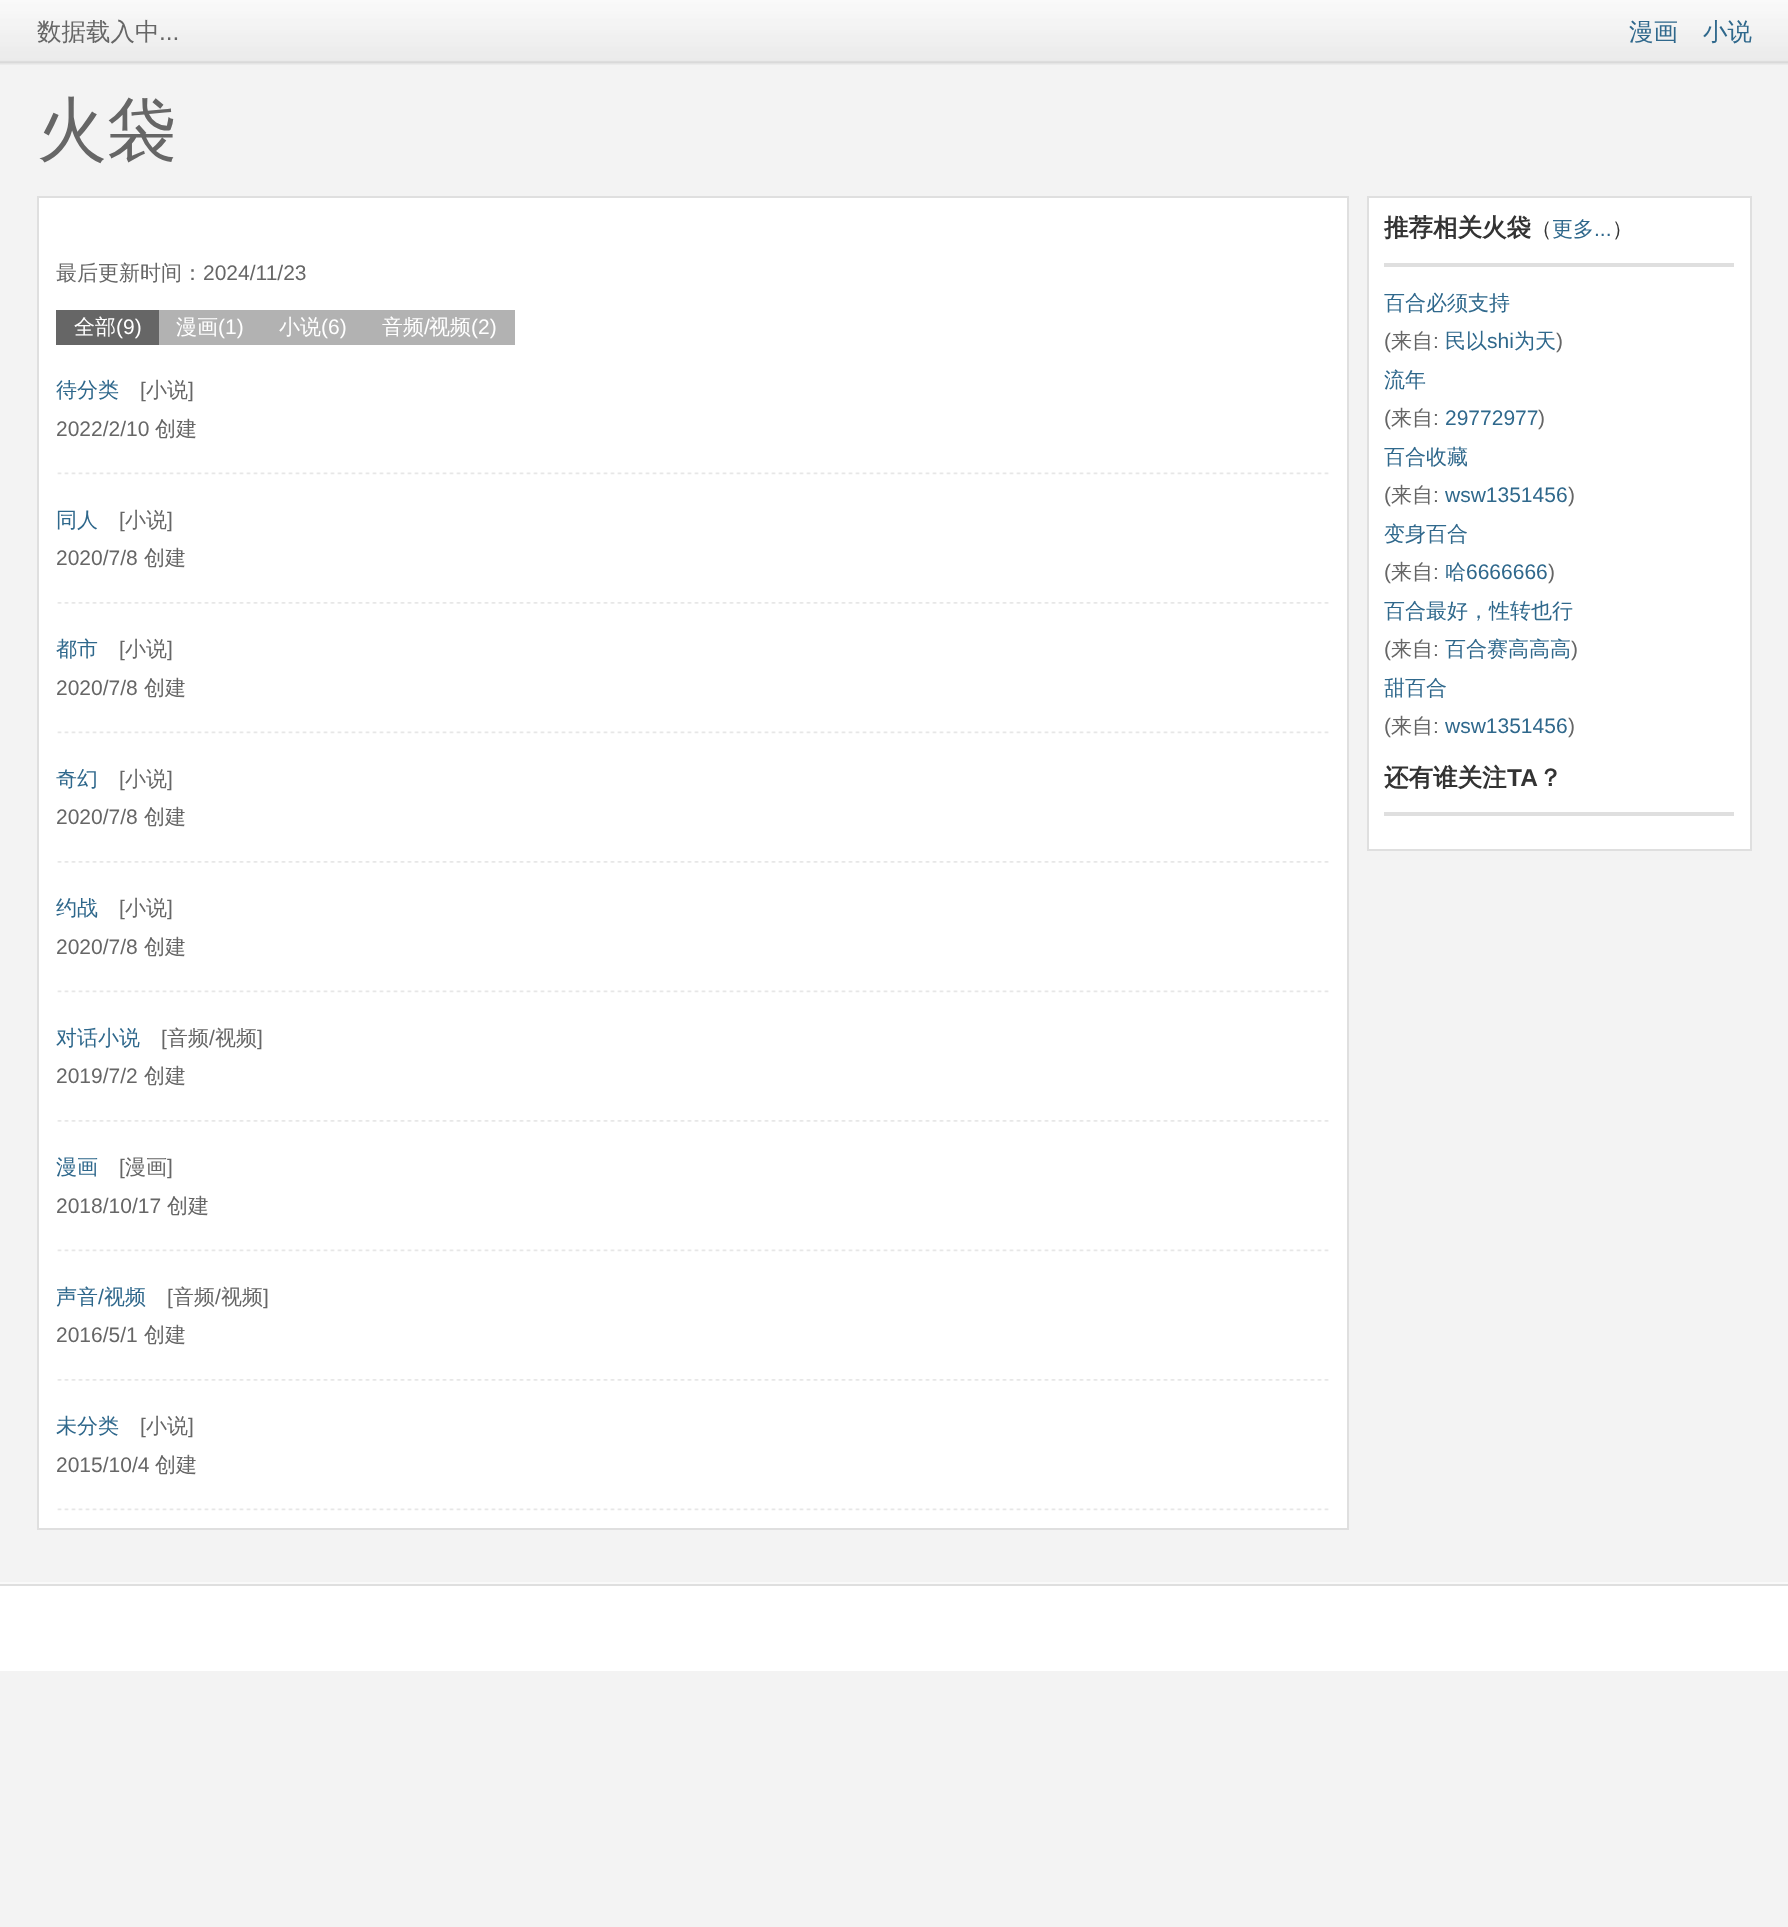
(async () => {
const canvas = document.querySelector("canvas")
canvas.width = 1788
canvas.height = 1927
const c = canvas.getContext("2d")
c.miterLimit = 4
c.fontKerning = "normal"
function T(s,x,y){c.fillText(s,x,y)}
function R(x,y,w,h){c.fillRect(x,y,w,h)}
async function I(src,x,y,w,h){const img=new Image();img.src=src;await img.decode();c.drawImage(img,x,y,w,h)}
c.fillStyle="#f3f3f3"
R(0,0,1788,1927)
await I("1.png",0,0,1788,65)
c.font="500 24.5px WenQuanYi Zen Hei"
c.fillStyle="#666"
T("数据载入中",37,40)
c.font="24.5px Liberation Sans"
T("...",159,40)
c.font="500 24.5px WenQuanYi Zen Hei"
c.fillStyle="#2f688c"
T("漫画",1629,40)
T("小说",1703,40)
c.font="500 70px WenQuanYi Zen Hei"
c.fillStyle="#666"
T("火袋",37,154)
c.fillStyle="#fff"
c.beginPath()
c.rect(38,197,1310,1332)
c.fill()
c.strokeStyle="#dfdfdf"
c.lineWidth=2
c.stroke()
c.font="500 21px WenQuanYi Zen Hei"
c.fillStyle="#666"
T("最后更新时间：",56,280)
c.font="21px Liberation Sans"
T("2024/11/23",203,280)
R(56,310,103,35)
c.font="500 21px WenQuanYi Zen Hei"
c.fillStyle="#fff"
T("全部",74,334)
c.font="21px Liberation Sans"
T("(9)",116,334)
c.fillStyle="#b2b2b2"
R(159,310,356,35)
c.font="500 21px WenQuanYi Zen Hei"
c.fillStyle="#fff"
T("漫画",176,334)
c.font="21px Liberation Sans"
T("(1)",218,334)
c.font="500 21px WenQuanYi Zen Hei"
T("小说",279,334)
c.font="21px Liberation Sans"
T("(6)",321,334)
c.font="500 21px WenQuanYi Zen Hei"
T("音频",382,334)
c.font="21px Liberation Sans"
T("/",424,334)
c.font="500 21px WenQuanYi Zen Hei"
T("视频",429,334)
c.font="21px Liberation Sans"
T("(2)",471,334)
await I("2.png",57,472,1272,3)
c.font="500 21px WenQuanYi Zen Hei"
c.fillStyle="#2f688c"
T("待分类",56,397)
c.font="21px Liberation Sans"
c.fillStyle="#666"
T("[",140,397)
c.font="500 21px WenQuanYi Zen Hei"
T("小说",146,397)
c.font="21px Liberation Sans"
T("]",188,397)
T("2022/2/10",56,436)
c.font="500 21px WenQuanYi Zen Hei"
T("创建",155,436)
await I("3.png",57,602,1272,2)
c.fillStyle="#2f688c"
T("同人",56,527)
c.font="21px Liberation Sans"
c.fillStyle="#666"
T("[",119,527)
c.font="500 21px WenQuanYi Zen Hei"
T("小说",125,527)
c.font="21px Liberation Sans"
T("]",167,527)
T("2020/7/8",56,565)
c.font="500 21px WenQuanYi Zen Hei"
T("创建",144,565)
await I("2.png",57,731,1272,3)
c.fillStyle="#2f688c"
T("都市",56,656)
c.font="21px Liberation Sans"
c.fillStyle="#666"
T("[",119,656)
c.font="500 21px WenQuanYi Zen Hei"
T("小说",125,656)
c.font="21px Liberation Sans"
T("]",167,656)
T("2020/7/8",56,695)
c.font="500 21px WenQuanYi Zen Hei"
T("创建",144,695)
await I("3.png",57,861,1272,2)
c.fillStyle="#2f688c"
T("奇幻",56,786)
c.font="21px Liberation Sans"
c.fillStyle="#666"
T("[",119,786)
c.font="500 21px WenQuanYi Zen Hei"
T("小说",125,786)
c.font="21px Liberation Sans"
T("]",167,786)
T("2020/7/8",56,824)
c.font="500 21px WenQuanYi Zen Hei"
T("创建",144,824)
await I("2.png",57,990,1272,3)
c.fillStyle="#2f688c"
T("约战",56,915)
c.font="21px Liberation Sans"
c.fillStyle="#666"
T("[",119,915)
c.font="500 21px WenQuanYi Zen Hei"
T("小说",125,915)
c.font="21px Liberation Sans"
T("]",167,915)
T("2020/7/8",56,954)
c.font="500 21px WenQuanYi Zen Hei"
T("创建",144,954)
await I("3.png",57,1120,1272,2)
c.fillStyle="#2f688c"
T("对话小说",56,1045)
c.font="21px Liberation Sans"
c.fillStyle="#666"
T("[",161,1045)
c.font="500 21px WenQuanYi Zen Hei"
T("音频",167,1045)
c.font="21px Liberation Sans"
T("/",209,1045)
c.font="500 21px WenQuanYi Zen Hei"
T("视频",215,1045)
c.font="21px Liberation Sans"
T("]",257,1045)
T("2019/7/2",56,1083)
c.font="500 21px WenQuanYi Zen Hei"
T("创建",144,1083)
await I("2.png",57,1249,1272,3)
c.fillStyle="#2f688c"
T("漫画",56,1174)
c.font="21px Liberation Sans"
c.fillStyle="#666"
T("[",119,1174)
c.font="500 21px WenQuanYi Zen Hei"
T("漫画",125,1174)
c.font="21px Liberation Sans"
T("]",167,1174)
T("2018/10/17",56,1213)
c.font="500 21px WenQuanYi Zen Hei"
T("创建",167,1213)
await I("3.png",57,1379,1272,2)
c.fillStyle="#2f688c"
T("声音",56,1304)
c.font="21px Liberation Sans"
T("/",98,1304)
c.font="500 21px WenQuanYi Zen Hei"
T("视频",104,1304)
c.font="21px Liberation Sans"
c.fillStyle="#666"
T("[",167,1304)
c.font="500 21px WenQuanYi Zen Hei"
T("音频",173,1304)
c.font="21px Liberation Sans"
T("/",215,1304)
c.font="500 21px WenQuanYi Zen Hei"
T("视频",221,1304)
c.font="21px Liberation Sans"
T("]",263,1304)
T("2016/5/1",56,1342)
c.font="500 21px WenQuanYi Zen Hei"
T("创建",144,1342)
await I("2.png",57,1508,1272,3)
c.fillStyle="#2f688c"
T("未分类",56,1433)
c.font="21px Liberation Sans"
c.fillStyle="#666"
T("[",140,1433)
c.font="500 21px WenQuanYi Zen Hei"
T("小说",146,1433)
c.font="21px Liberation Sans"
T("]",188,1433)
T("2015/10/4",56,1472)
c.font="500 21px WenQuanYi Zen Hei"
T("创建",155,1472)
c.fillStyle="#fff"
c.beginPath()
c.rect(1368,197,383,653)
c.fill()
c.stroke()
c.font="bold 24.5px WenQuanYi Zen Hei"
c.fillStyle="#333"
T("推荐相关火袋",1384,236)
c.font="500 21px WenQuanYi Zen Hei"
T("（",1531,236)
c.fillStyle="#2f688c"
T("更多",1552,236)
c.font="21px Liberation Sans"
T("...",1594,236)
c.font="500 21px WenQuanYi Zen Hei"
c.fillStyle="#333"
T("）",1612,236)
c.fillStyle="#dfdfdf"
R(1384,263,350,4)
c.fillStyle="#2f688c"
T("百合必须支持",1384,310)
c.font="21px Liberation Sans"
c.fillStyle="#666"
T("(",1384,348)
c.font="500 21px WenQuanYi Zen Hei"
T("来自",1391,348)
c.font="21px Liberation Sans"
T(":",1433,348)
c.font="500 21px WenQuanYi Zen Hei"
c.fillStyle="#2f688c"
T("民以",1445,348)
c.font="21px Liberation Sans"
T("shi",1487,348)
c.font="500 21px WenQuanYi Zen Hei"
T("为天",1514,348)
c.font="21px Liberation Sans"
c.fillStyle="#666"
T(")",1556,348)
c.font="500 21px WenQuanYi Zen Hei"
c.fillStyle="#2f688c"
T("流年",1384,387)
c.font="21px Liberation Sans"
c.fillStyle="#666"
T("(",1384,425)
c.font="500 21px WenQuanYi Zen Hei"
T("来自",1391,425)
c.font="21px Liberation Sans"
T(":",1433,425)
c.fillStyle="#2f688c"
T("29772977",1445,425)
c.fillStyle="#666"
T(")",1538,425)
c.font="500 21px WenQuanYi Zen Hei"
c.fillStyle="#2f688c"
T("百合收藏",1384,464)
c.font="21px Liberation Sans"
c.fillStyle="#666"
T("(",1384,502)
c.font="500 21px WenQuanYi Zen Hei"
T("来自",1391,502)
c.font="21px Liberation Sans"
T(":",1433,502)
c.fillStyle="#2f688c"
T("wsw1351456",1445,502)
c.fillStyle="#666"
T(")",1568,502)
c.font="500 21px WenQuanYi Zen Hei"
c.fillStyle="#2f688c"
T("变身百合",1384,541)
c.font="21px Liberation Sans"
c.fillStyle="#666"
T("(",1384,579)
c.font="500 21px WenQuanYi Zen Hei"
T("来自",1391,579)
c.font="21px Liberation Sans"
T(":",1433,579)
c.font="500 21px WenQuanYi Zen Hei"
c.fillStyle="#2f688c"
T("哈",1445,579)
c.font="21px Liberation Sans"
T("6666666",1466,579)
c.fillStyle="#666"
T(")",1548,579)
c.font="500 21px WenQuanYi Zen Hei"
c.fillStyle="#2f688c"
T("百合最好，性转也行",1384,618)
c.font="21px Liberation Sans"
c.fillStyle="#666"
T("(",1384,656)
c.font="500 21px WenQuanYi Zen Hei"
T("来自",1391,656)
c.font="21px Liberation Sans"
T(":",1433,656)
c.font="500 21px WenQuanYi Zen Hei"
c.fillStyle="#2f688c"
T("百合赛高高高",1445,656)
c.font="21px Liberation Sans"
c.fillStyle="#666"
T(")",1571,656)
c.font="500 21px WenQuanYi Zen Hei"
c.fillStyle="#2f688c"
T("甜百合",1384,695)
c.font="21px Liberation Sans"
c.fillStyle="#666"
T("(",1384,733)
c.font="500 21px WenQuanYi Zen Hei"
T("来自",1391,733)
c.font="21px Liberation Sans"
T(":",1433,733)
c.fillStyle="#2f688c"
T("wsw1351456",1445,733)
c.fillStyle="#666"
T(")",1568,733)
c.font="bold 24.5px WenQuanYi Zen Hei"
c.fillStyle="#333"
T("还有谁关注",1384,786)
c.font="bold 24.5px Liberation Sans"
T("TA",1507,786)
c.font="bold 24.5px WenQuanYi Zen Hei"
T("？",1538,786)
c.fillStyle="#dfdfdf"
R(1384,812,350,4)
c.fillStyle="#fff"
R(0,1586,1788,85)
c.fillStyle="#fafafa"
R(0,1582,1788,2)
c.fillStyle="#dfdfdf"
R(0,1584,1788,2)
})()
